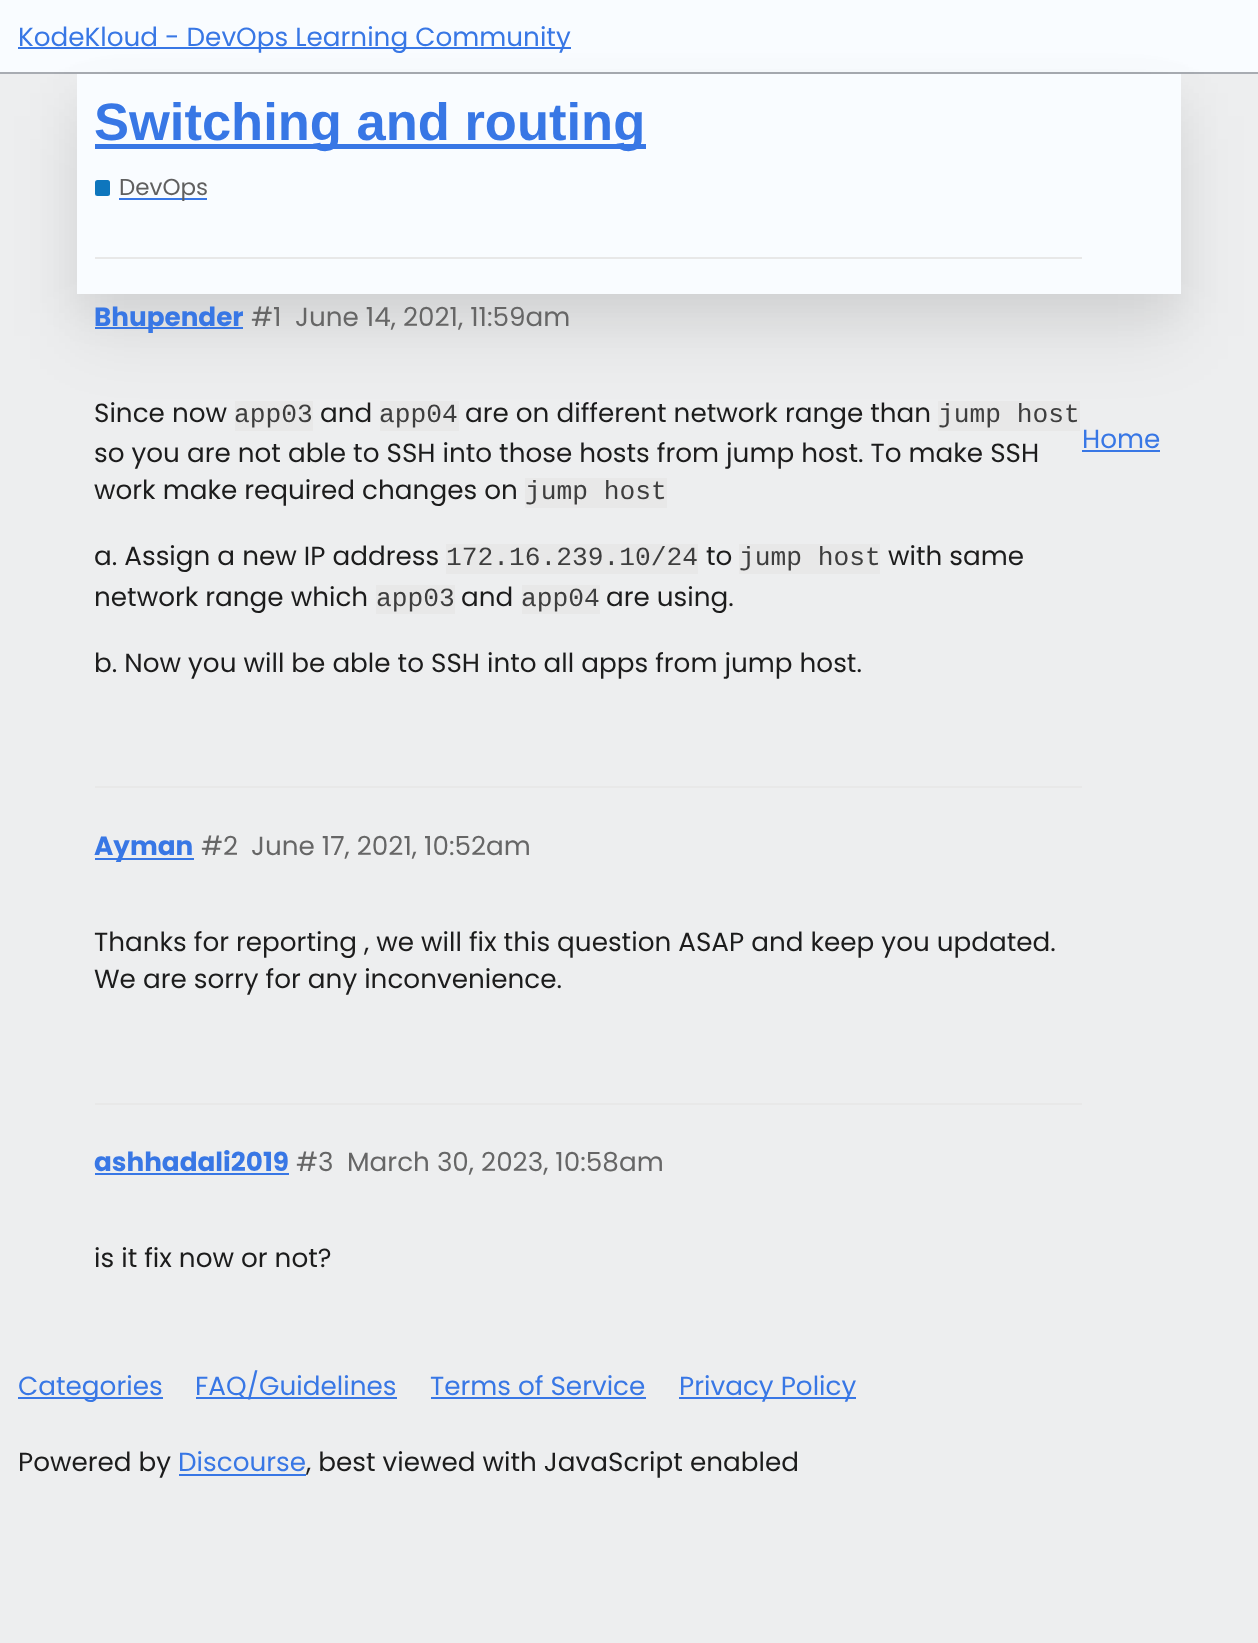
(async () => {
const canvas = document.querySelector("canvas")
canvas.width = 1258
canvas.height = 1643
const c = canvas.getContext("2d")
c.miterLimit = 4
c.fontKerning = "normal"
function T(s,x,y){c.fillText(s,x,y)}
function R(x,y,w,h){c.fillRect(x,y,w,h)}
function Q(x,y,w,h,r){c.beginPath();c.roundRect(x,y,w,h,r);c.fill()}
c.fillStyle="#edeeef"
R(0,0,1258,1643)
c.fillStyle="#f9fcff"
R(0,0,1258,72)
c.fillStyle="#a8acb2"
R(0,72,1258,2)
c.fillStyle="#0000000d"
c.filter="blur(21px)"
c.beginPath()
c.rect(77,93,1104,220)
c.fill()
c.filter="none"
c.fillStyle="#00000012"
c.filter="blur(35px)"
c.beginPath()
c.rect(77,116,1104,220)
c.fill()
c.filter="none"
c.fillStyle="#3877e5"
R(18,47,553,2)
c.font="26.25px Poppins"
T("KodeKloud - DevOps Learning Community",18,46)
c.fillStyle="#f9fcff"
R(77,74,1104,220)
c.fillStyle="#3877e5"
R(95,144,551,5)
c.font="bold 52.5px Liberation Sans"
T("Switching and routing",94,140)
c.fillStyle="#0e76bd"
Q(95,180,15,16,2.5)
c.fillStyle="#3877e5"
R(119,198,88,2)
c.font="23px Poppins"
c.fillStyle="#606060"
T("DevOps",119,195)
c.fillStyle="#e8e8e8"
R(95,257,987,2)
c.fillStyle="#3877e5"
R(95,327,148,2)
c.font="bold 26.25px Poppins"
T("Bhupender",94,326)
c.font="26.25px Poppins"
c.fillStyle="#666"
T("#1",251,326)
T("June 14, 2021, 11:59am",295,326)
c.fillStyle="#1c1c1c"
T("Since now",94,422)
c.fillStyle="#e8e8e8"
R(235,401,78,30)
c.font="26.25px Liberation Mono"
c.fillStyle="#3e3e3e"
T("app03",234,422)
c.font="26.25px Poppins"
c.fillStyle="#1c1c1c"
T("and",320,422)
c.fillStyle="#e8e8e8"
R(380,401,79,30)
c.font="26.25px Liberation Mono"
c.fillStyle="#3e3e3e"
T("app04",379,422)
c.font="26.25px Poppins"
c.fillStyle="#1c1c1c"
T("are on different network range than",465,422)
c.fillStyle="#e8e8e8"
R(938,401,142,30)
c.font="26.25px Liberation Mono"
c.fillStyle="#3e3e3e"
T("jump host",938,422)
c.font="26.25px Poppins"
c.fillStyle="#1c1c1c"
T("so you are not able to SSH into those hosts from jump host. To make SSH",94,462)
T("work make required changes on",94,499)
c.fillStyle="#e8e8e8"
R(525,478,142,30)
c.font="26.25px Liberation Mono"
c.fillStyle="#3e3e3e"
T("jump host",525,499)
c.font="26.25px Poppins"
c.fillStyle="#1c1c1c"
T("a. Assign a new IP address",94,565)
c.fillStyle="#e8e8e8"
R(446,544,252,30)
c.font="26.25px Liberation Mono"
c.fillStyle="#3e3e3e"
T("172.16.239.10/24",446,565)
c.font="26.25px Poppins"
c.fillStyle="#1c1c1c"
T("to",706,565)
c.fillStyle="#e8e8e8"
R(739,544,141,30)
c.font="26.25px Liberation Mono"
c.fillStyle="#3e3e3e"
T("jump host",739,565)
c.font="26.25px Poppins"
c.fillStyle="#1c1c1c"
T("with same",888,565)
T("network range which",94,606)
c.fillStyle="#e8e8e8"
R(376,585,79,29)
c.font="26.25px Liberation Mono"
c.fillStyle="#3e3e3e"
T("app03",376,606)
c.font="26.25px Poppins"
c.fillStyle="#1c1c1c"
T("and",461,606)
c.fillStyle="#e8e8e8"
R(522,585,78,29)
c.font="26.25px Liberation Mono"
c.fillStyle="#3e3e3e"
T("app04",521,606)
c.font="26.25px Poppins"
c.fillStyle="#1c1c1c"
T("are using.",606,606)
T("b. Now you will be able to SSH into all apps from jump host.",94,672)
c.fillStyle="#e8e8e8"
R(95,786,987,2)
c.fillStyle="#3877e5"
R(95,858,99,2)
c.font="bold 26.25px Poppins"
T("Ayman",94,855)
c.font="26.25px Poppins"
c.fillStyle="#666"
T("#2",201,855)
T("June 17, 2021, 10:52am",251,855)
c.fillStyle="#1c1c1c"
T("Thanks for reporting , we will fix this question ASAP and keep you updated.",94,951)
T("We are sorry for any inconvenience.",94,988)
c.fillStyle="#e8e8e8"
R(95,1103,987,2)
c.font="bold 26.25px Poppins"
c.fillStyle="#3877e5"
T("ashhadali2019",94,1171)
R(95,1173,194,2)
c.font="26.25px Poppins"
c.fillStyle="#666"
T("#3",296,1171)
T("March 30, 2023, 10:58am",347,1171)
c.fillStyle="#1c1c1c"
T("is it fix now or not?",94,1267)
c.fillStyle="#3877e5"
T("Home",1082,448)
R(1082,450,78,2)
R(18,1397,145,2)
T("Categories",18,1395)
R(196,1397,201,2)
T("FAQ/Guidelines",195,1395)
T("Terms of Service",430,1395)
R(431,1397,215,2)
R(679,1397,177,2)
T("Privacy Policy",679,1395)
c.fillStyle="#1c1c1c"
T("Powered by",18,1471)
c.fillStyle="#3877e5"
T("Discourse",178,1471)
R(179,1474,127,2)
c.fillStyle="#1c1c1c"
T(", best viewed with JavaScript enabled",306,1471)
})()
